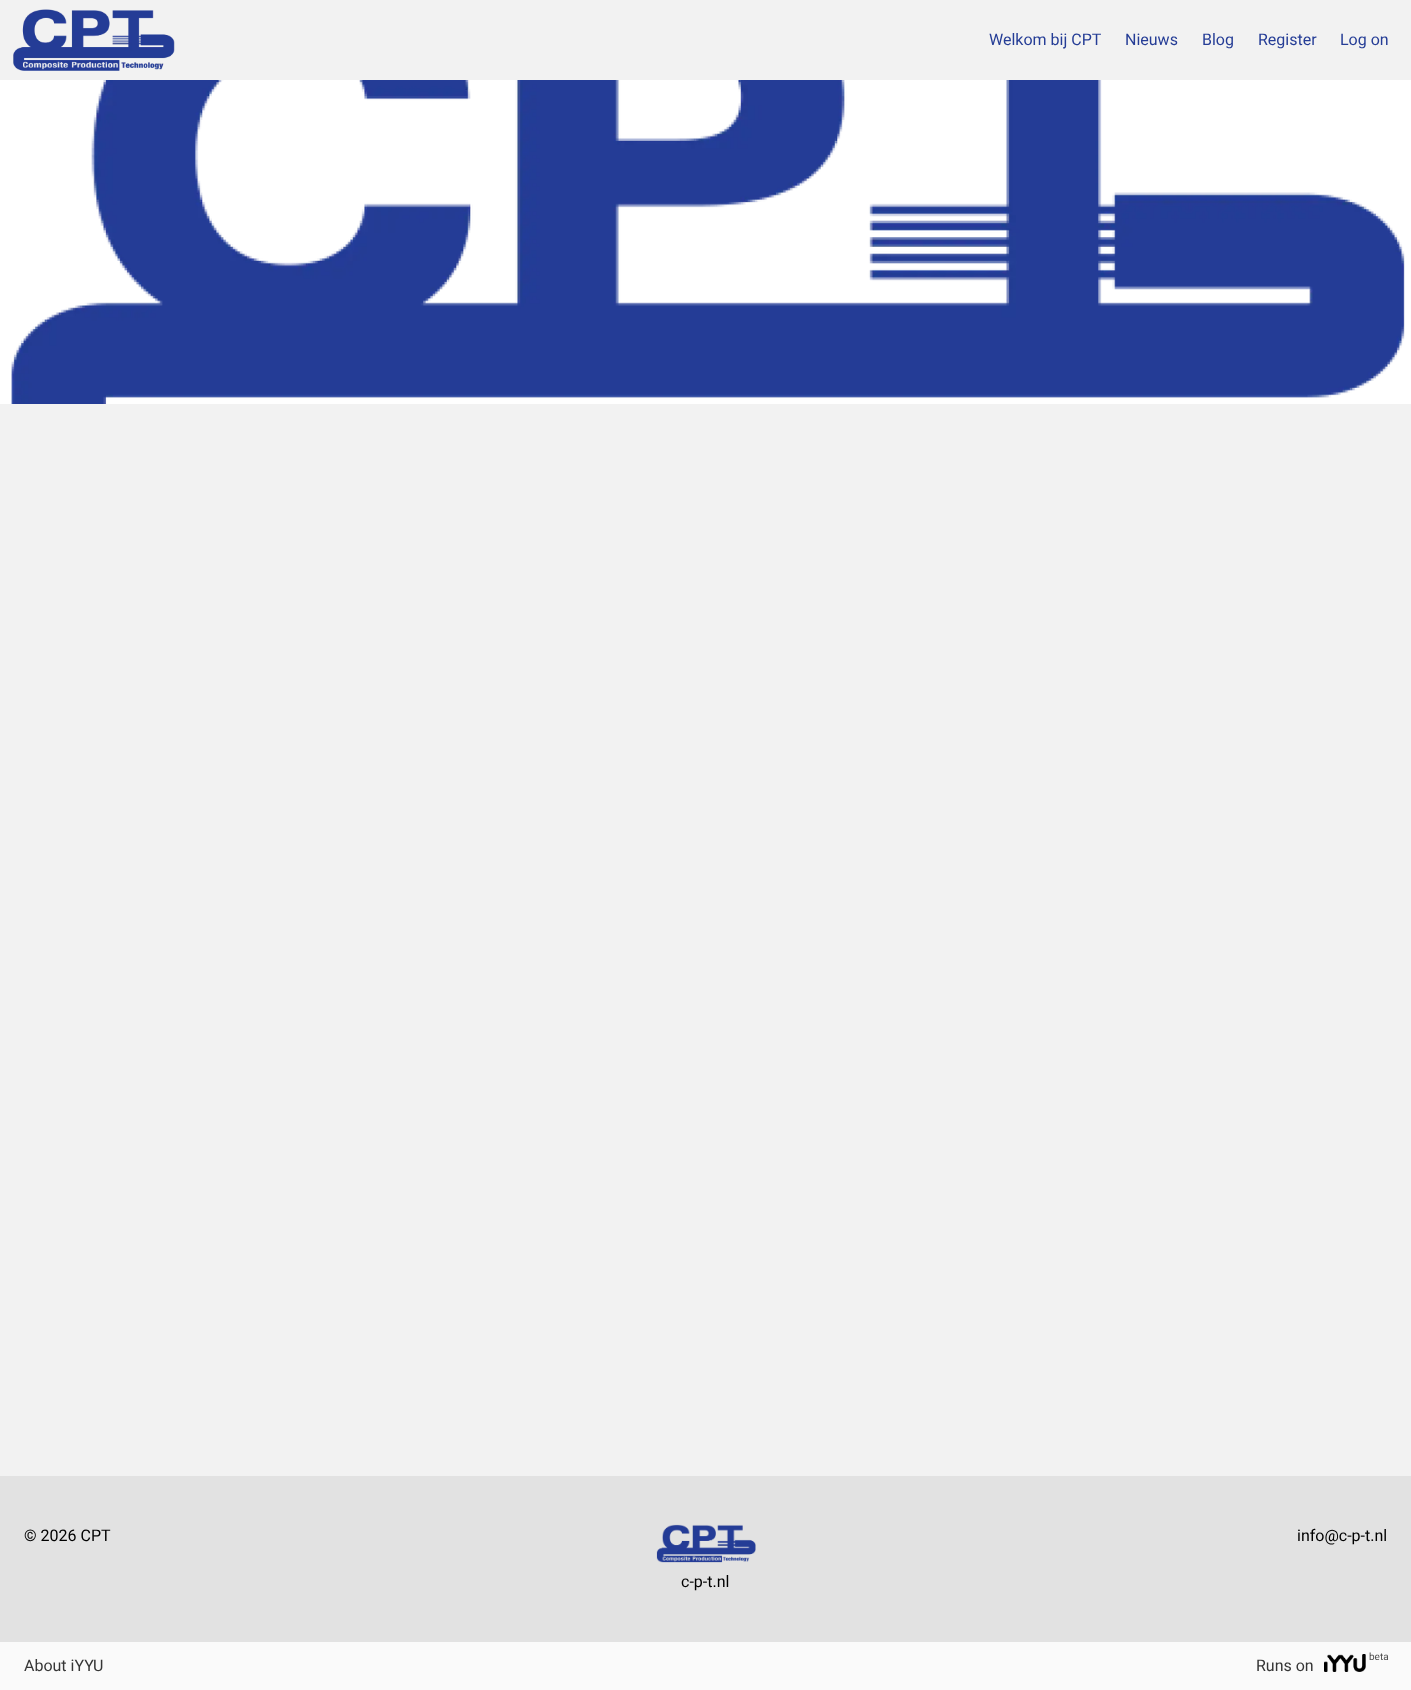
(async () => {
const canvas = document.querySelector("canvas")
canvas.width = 1411
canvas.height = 1690
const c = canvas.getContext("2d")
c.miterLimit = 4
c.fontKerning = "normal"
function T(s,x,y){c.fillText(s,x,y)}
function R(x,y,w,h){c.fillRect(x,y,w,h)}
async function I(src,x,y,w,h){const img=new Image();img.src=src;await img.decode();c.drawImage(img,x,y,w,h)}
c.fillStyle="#f2f2f2"
R(0,0,1411,1690)
await I("1.png",13,9,162,62)
c.font="16px Roboto"
c.fillStyle="#253d96"
T("Welkom bij CPT",989,45)
T("Nieuws",1125,45)
T("Blog",1202,45)
T("Register",1258,45)
T("Log on",1340,45)
c.fillStyle="#fff"
R(0,80,1411,324)
await I("2.png",11,80,1394,324)
c.fillStyle="#e2e2e2"
R(0,1476,1411,166)
c.fillStyle="#000"
T("© 2026 CPT",24,1541)
T("info@c-p-t.nl",1297,1541)
await I("3.png",656,1524,100,39)
T("c-p-t.nl",681,1587)
c.fillStyle="#fafafa"
R(0,1642,1411,48)
c.fillStyle="#363636"
T("About iYYU",24,1671)
await I("4.png",1324,1654,42,18)
c.font="10px Roboto"
c.fillStyle="#4a4a4a"
T("beta",1369,1660)
c.font="16px Roboto"
c.fillStyle="#363636"
T("Runs on",1256,1671)
})()
